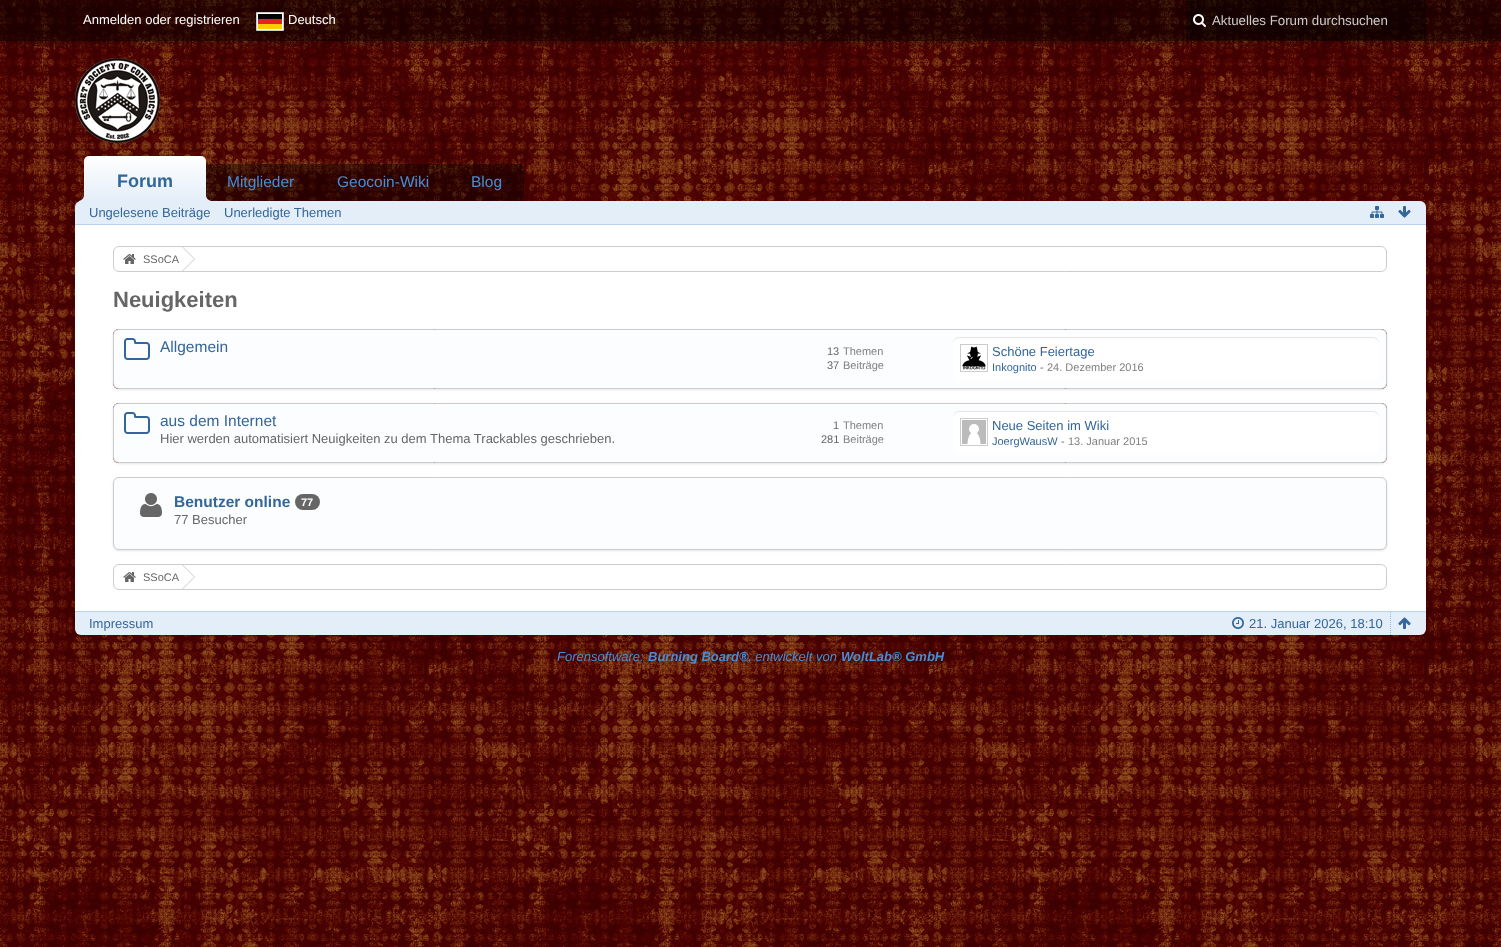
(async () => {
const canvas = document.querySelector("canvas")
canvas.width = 1501
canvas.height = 947
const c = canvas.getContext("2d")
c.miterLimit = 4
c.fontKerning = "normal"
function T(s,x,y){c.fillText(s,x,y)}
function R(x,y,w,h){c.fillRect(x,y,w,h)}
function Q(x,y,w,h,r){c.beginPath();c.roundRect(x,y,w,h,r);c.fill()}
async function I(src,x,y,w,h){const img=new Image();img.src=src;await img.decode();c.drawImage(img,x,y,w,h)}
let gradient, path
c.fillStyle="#fff"
R(0,0,1501,947)
await I("1.png",0,0,1501,947)
c.save()
c.beginPath()
c.rect(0,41,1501,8)
c.clip()
c.fillStyle="#0000004d"
c.filter="blur(3.5px)"
c.beginPath()
c.rect(0,3,1501,41)
c.fill()
c.filter="none"
c.restore()
c.fillStyle="#00000080"
R(0,0,1501,41)
c.fillStyle="#0000001a"
R(0,40,1501,1)
c.font="13px Liberation Sans"
c.fillStyle="#fff"
T("Anmelden oder registrieren",83,24)
c.beginPath()
c.rect(256.5,12.5,27,18)
c.fill()
c.strokeStyle="#ccc"
c.stroke()
c.fillStyle="#010202"
R(258,14,24,5)
c.fillStyle="#e52420"
R(258,19,24,5)
c.fillStyle="#ffcc04"
R(258,24,24,5)
c.fillStyle="#fff"
T("Deutsch",288,24)
c.fillStyle="#00000066"
R(1186,0,240,40)
await I("2.png",1193,14,13,13)
c.font="13.3px Liberation Sans"
c.fillStyle="#ccc"
T("Aktuelles Forum durchsuchen",1212,25)
await I("3.png",75,58,85,85)
c.fillStyle="#00000066"
c.beginPath()
c.roundRect(84,164,440,37,[5,5,0,0])
c.fill()
gradient = c.createLinearGradient(145,156,145,201)
gradient.addColorStop(0,"#fff")
gradient.addColorStop(1,"#e4eef8")
c.fillStyle = gradient
c.beginPath()
c.roundRect(84,156,122,45,[5,5,0,0])
c.fill()
c.font="bold 18px Liberation Sans"
c.fillStyle="#369"
T("Forum",117,187)
c.fillStyle="#e4eef8"
c.beginPath()
c.roundRect(75,201,1351,24,[6,6,0,0])
c.fill()
path = new Path2D("M79 201v2c4.5 0 7-2.5 7-7h-2c-.5 2.5-2.5 4.5-5 5z")
c.fill(path)
path = new Path2D("M204 196c0 4.5 2.5 7 7 7v-2c-2.5-.5-4.5-2.5-5-5z")
c.fill(path)
c.font="15.5px Liberation Sans"
c.fillStyle="#488ed4"
T("Mitglieder",227,187)
T("Geocoin-Wiki",337,187)
T("Blog",471,187)
c.fillStyle="#b8d3ed"
R(75,224,1351,1)
c.font="13px Liberation Sans"
c.fillStyle="#369"
T("Ungelesene Beiträge",89,217)
T("Unerledigte Themen",224,217)
await I("4.png",1370,206,14,12)
await I("5.png",1398,206,13,12)
c.fillStyle="#fff"
R(75,225,1351,386)
c.beginPath()
c.roundRect(113.5,246.5,1273,25,5.5)
c.stroke()
await I("6.png",123,254,13,10)
c.font="11px Liberation Sans"
c.fillStyle="#666"
T("SSoCA",143,263)
c.fillStyle="#ccc"
path = new Path2D("M183 247l12 12l-12 12h-3v-24z")
c.fill(path)
c.fillStyle="#fff"
path = new Path2D("M182 247l12 12l-12 12h-3v-24z")
c.fill(path)
c.font="bold 22px Liberation Sans"
c.fillStyle="#666"
T("Neuigkeiten",113,307)
c.fillStyle="#0000001a"
c.filter="blur(1px)"
c.beginPath()
c.roundRect(113,330,1274,60,6)
c.fill()
c.filter="none"
await I("7.png",113,329,1274,60)
c.beginPath()
c.roundRect(113.5,329.5,1273,59,5.5)
c.stroke()
c.fillStyle="#fcfdfe"
Q(114,330,1272,58,4)
await I("8.png",124,338,26,22)
c.font="15.5px Liberation Sans"
c.fillStyle="#369"
T("Allgemein",160,352)
c.font="11px Liberation Sans"
c.fillStyle="#666"
T("13",827,355)
c.fillStyle="#808080"
T("Themen",843,355)
c.fillStyle="#666"
T("37",827,369)
c.fillStyle="#808080"
T("Beiträge",843,369)
c.fillStyle="#fff"
Q(953,337,426,44,6)
c.fillStyle="#e5e5e5"
path = new Path2D("M959 338h414c3 0 6 3 6 6v-1c0-3-3-6-6-6h-414c-3 0-6 3-6 6v1c0-3 3-6 6-6z")
c.fill(path)
c.strokeRect(960.5,344.5,27,27)
await I("9.png",962,346,24,24)
c.font="13px Liberation Sans"
c.fillStyle="#369"
T("Schöne Feiertage",992,356)
c.font="11px Liberation Sans"
T("Inkognito",992,371)
c.fillStyle="#666"
T("-",1040,371)
c.fillStyle="#808080"
T("24. Dezember 2016",1047,371)
c.fillStyle="#0000001a"
c.filter="blur(1px)"
c.beginPath()
c.roundRect(113,404,1274,60,6)
c.fill()
c.filter="none"
await I("7.png",113,403,1274,60)
c.beginPath()
c.roundRect(113.5,403.5,1273,59,5.5)
c.stroke()
c.fillStyle="#fcfdfe"
Q(114,404,1272,58,4)
await I("8.png",124,412,26,22)
c.font="15.5px Liberation Sans"
c.fillStyle="#369"
T("aus dem Internet",160,426)
c.font="13px Liberation Sans"
c.fillStyle="#666"
T("Hier werden automatisiert Neuigkeiten zu dem Thema Trackables geschrieben.",160,443)
c.font="11px Liberation Sans"
T("1",833,429)
c.fillStyle="#808080"
T("Themen",843,429)
c.fillStyle="#666"
T("281",821,443)
c.fillStyle="#808080"
T("Beiträge",843,443)
c.fillStyle="#fff"
Q(953,411,426,44,6)
c.fillStyle="#e5e5e5"
path = new Path2D("M959 412h414c3 0 6 3 6 6v-1c0-3-3-6-6-6h-414c-3 0-6 3-6 6v1c0-3 3-6 6-6z")
c.fill(path)
c.strokeRect(960.5,418.5,27,27)
c.fillStyle="#bbb"
R(962,420,24,24)
c.fillStyle="#fff"
path = new Path2D("M967.5 444c.5-16 12.5-16 13 0")
c.fill(path)
c.beginPath()
c.arc(974,429,5,0,7)
c.fill()
c.font="13px Liberation Sans"
c.fillStyle="#369"
T("Neue Seiten im Wiki",992,430)
c.font="11px Liberation Sans"
T("JoergWausW",992,445)
c.fillStyle="#666"
T("-",1061,445)
c.fillStyle="#808080"
T("13. Januar 2015",1068,445)
c.fillStyle="#0000001a"
c.filter="blur(1px)"
c.beginPath()
c.roundRect(113,478,1274,73,6)
c.fill()
c.filter="none"
c.fillStyle="#fcfdfe"
c.beginPath()
c.roundRect(113.5,477.5,1273,72,5.5)
c.fill()
c.stroke()
await I("10.png",140,493,22,24)
c.font="bold 15.5px Liberation Sans"
c.fillStyle="#369"
T("Benutzer online",174,507)
c.fillStyle="#666"
Q(295,494,25,16,8)
c.font="bold 11px Liberation Sans"
c.fillStyle="#fff"
T("77",301,506)
c.font="13px Liberation Sans"
c.fillStyle="#666"
T("77 Besucher",174,524)
c.beginPath()
c.roundRect(113.5,564.5,1273,25,5.5)
c.stroke()
await I("6.png",123,572,13,10)
c.font="11px Liberation Sans"
T("SSoCA",143,581)
c.fillStyle="#ccc"
path = new Path2D("M183 565l12 12l-12 12h-3v-24z")
c.fill(path)
c.fillStyle="#fff"
path = new Path2D("M182 565l12 12l-12 12h-3v-24z")
c.fill(path)
c.fillStyle="#e4eef8"
c.beginPath()
c.roundRect(75,611,1351,24,[0,0,6,6])
c.fill()
c.fillStyle="#b8d3ed"
R(75,611,1351,1)
c.font="13px Liberation Sans"
c.fillStyle="#369"
T("Impressum",89,628)
path = new Path2D("M1390.5 612v23")
c.strokeStyle="#93bde3"
c.setLineDash([1,1])
c.stroke(path)
await I("11.png",1232,617,12,12)
T("21. Januar 2026, 18:10",1249,628)
await I("12.png",1398,617,13,12)
c.font="italic 13px Liberation Sans"
c.fillStyle="#488ed4"
T("Forensoftware:",557,661)
c.font="italic bold 13px Liberation Sans"
T("Burning Board®",648,661)
c.font="italic 13px Liberation Sans"
T(", entwickelt von",748,661)
c.font="italic bold 13px Liberation Sans"
T("WoltLab® GmbH",841,661)
})()
